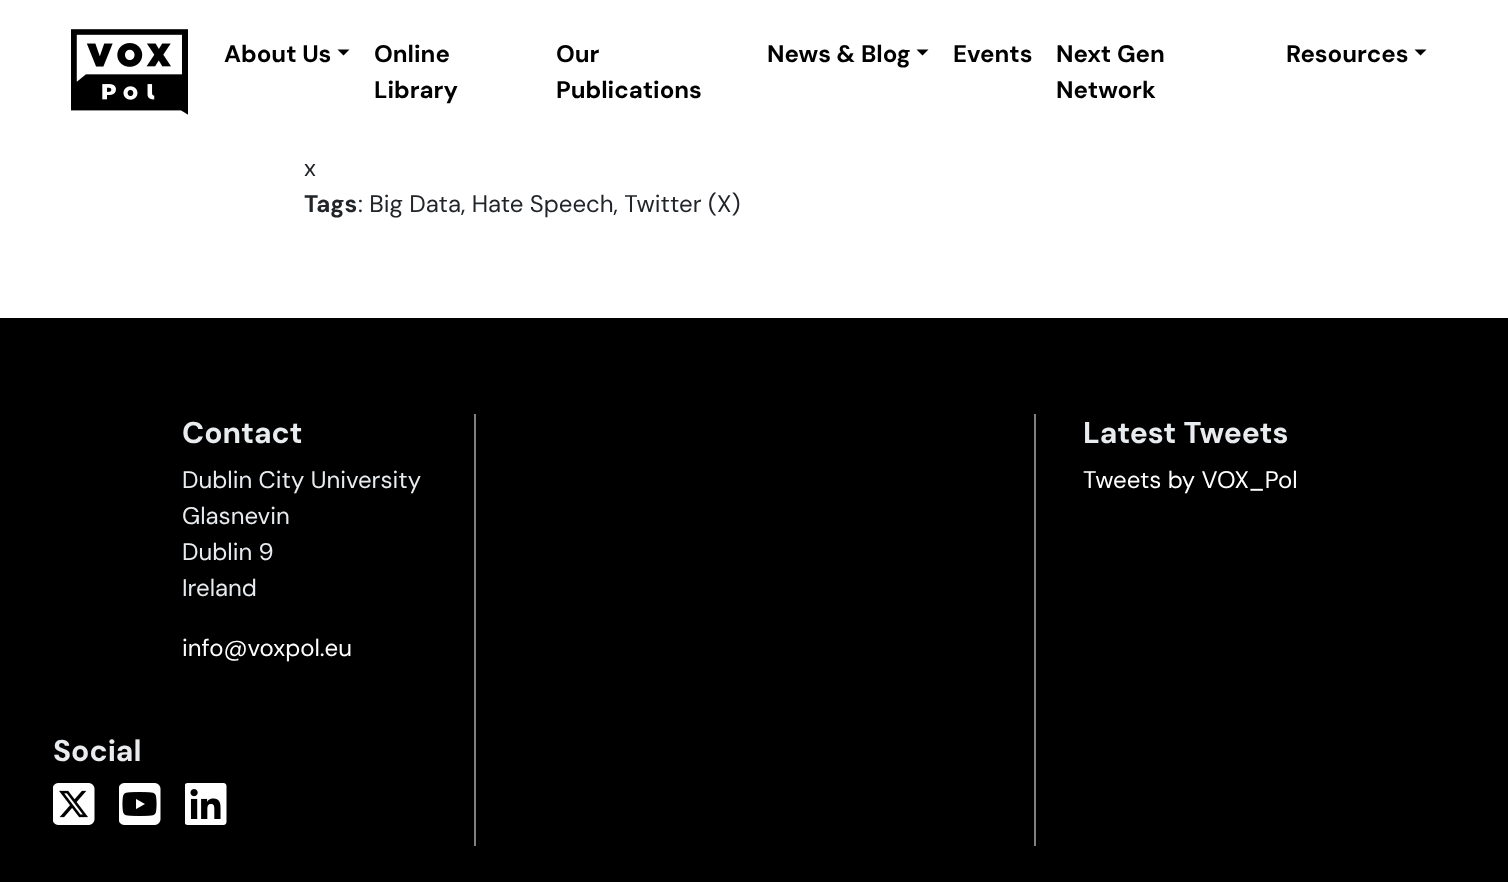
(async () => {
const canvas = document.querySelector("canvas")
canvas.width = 1508
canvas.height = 882
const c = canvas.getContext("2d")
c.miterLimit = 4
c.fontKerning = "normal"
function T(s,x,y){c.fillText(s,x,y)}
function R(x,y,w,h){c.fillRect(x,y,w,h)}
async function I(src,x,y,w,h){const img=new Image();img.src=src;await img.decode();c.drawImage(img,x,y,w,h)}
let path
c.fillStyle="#fff"
R(0,0,1508,882)
await I("1.png",71,29,117,86)
c.font="bold 24px DM Sans"
c.fillStyle="#000"
T("About Us",224,62)
path = new Path2D("M337.5 49.5h12l-6 6z")
c.fill(path)
T("Online",374,62)
T("Library",374,98)
T("Our",556,62)
T("Publications",556,98)
T("News & Blog",767,62)
path = new Path2D("M916.5 49.5h12l-6 6z")
c.fill(path)
T("Events",953,62)
T("Next Gen",1056,62)
T("Network",1056,98)
T("Resources",1286,62)
path = new Path2D("M1414.5 49.5h12l-6 6z")
c.fill(path)
c.font="24px DM Sans"
c.fillStyle="#212529"
T("x",304,176)
c.font="bold 24px DM Sans"
T("Tags",304,212)
c.font="24px DM Sans"
T(": Big Data, Hate Speech, Twitter (X)",358,212)
c.fillStyle="#000"
R(0,318,1508,564)
c.font="bold 30px DM Sans"
c.fillStyle="#e9ecef"
T("Contact",182,443)
c.font="24px DM Sans"
T("Dublin City University",182,488)
T("Glasnevin",182,524)
T("Dublin 9",182,560)
T("Ireland",182,596)
c.fillStyle="#fff"
T("info@voxpol.eu",182,656)
c.font="bold 30px DM Sans"
c.fillStyle="#e9ecef"
T("Social",53,761)
await I("2.png",53,783,42,42)
await I("3.png",119,783,42,42)
await I("4.png",185,783,42,42)
c.fillStyle="#808080"
R(1034,414,2,432)
R(474,414,2,432)
c.fillStyle="#e9ecef"
T("Latest Tweets",1083,443)
c.font="24px DM Sans"
c.fillStyle="#fff"
T("Tweets by VOX_Pol",1083,488)
})()
